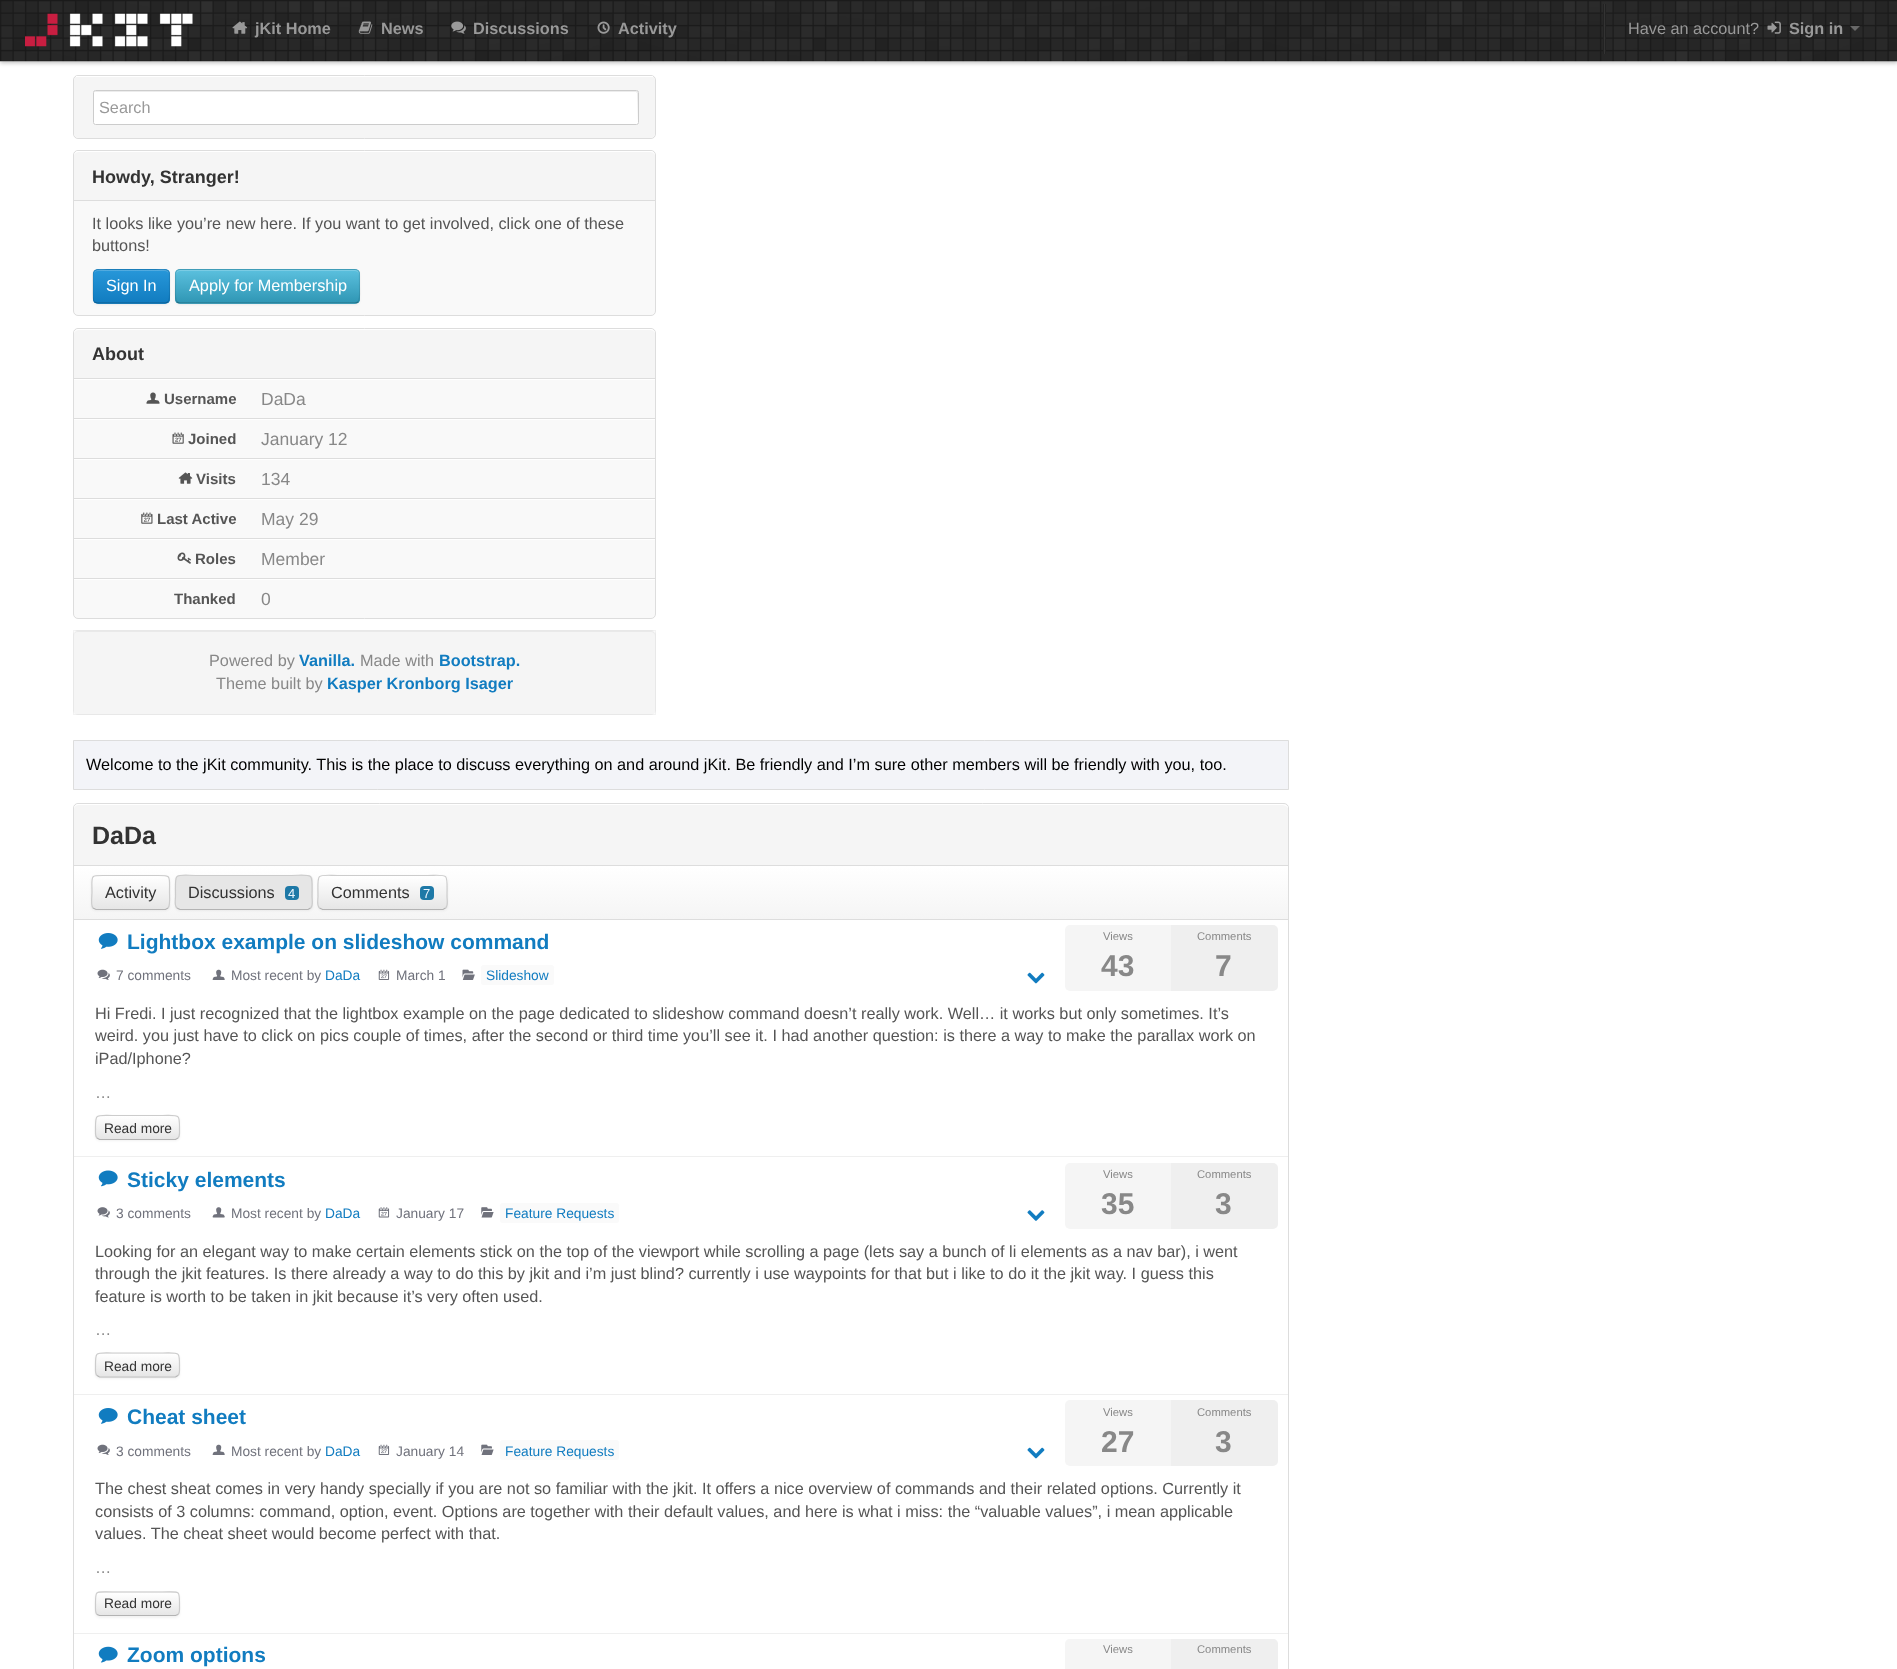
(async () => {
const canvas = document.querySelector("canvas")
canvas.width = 1897
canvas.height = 1669
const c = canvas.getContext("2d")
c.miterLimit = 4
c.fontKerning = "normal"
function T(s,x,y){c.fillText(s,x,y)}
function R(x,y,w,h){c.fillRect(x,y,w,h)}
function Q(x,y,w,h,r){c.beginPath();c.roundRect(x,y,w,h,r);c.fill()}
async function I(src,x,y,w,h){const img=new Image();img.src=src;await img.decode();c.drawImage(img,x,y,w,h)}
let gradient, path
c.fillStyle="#fff"
R(0,0,1897,1669)
c.fillStyle="#00000040"
c.filter="blur(2px)"
c.beginPath()
c.rect(0,1,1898,62)
c.fill()
c.filter="none"
await I("1.png",0,0,1897,62)
c.fillStyle="#0000001a"
R(0,60,1897,1)
await I("2.png",25,13,168,34)
await I("3.png",232,21,16,13)
c.font="bold 16.25px Liberation Sans"
c.fillStyle="#999"
T("jKit Home",255,34)
await I("4.png",358,21,15,13)
T("News",381,34)
await I("5.png",451,21,15,13)
T("Discussions",473,34)
await I("6.png",597,21,13,13)
T("Activity",618,34)
c.fillStyle="#222"
R(1603,4,3,50)
c.fillStyle="#333"
R(1604,4,1,50)
c.font="16.25px Liberation Sans"
c.fillStyle="#999"
T("Have an account?",1628,34)
await I("7.png",1767,21,14,13)
c.font="bold 16.25px Liberation Sans"
T("Sign in",1789,34)
c.fillStyle="#ffffff4d"
path = new Path2D("M1850 26h10l-5 5z")
c.fill(path)
c.fillStyle="#f9f9f9"
c.beginPath()
c.roundRect(73.5,75.5,582,63,4.5)
c.fill()
c.strokeStyle="#ddd"
c.stroke()
c.fillStyle="#f5f5f5"
Q(74,76,581,62,5)
c.fillStyle="#fff"
R(76,76,577,1)
Q(93,90,546,35,2.5)
c.fillStyle="#ececec"
path = new Path2D("M95 92h541l1 1l1 30v-21c0-1 1-11-1-11h-542c-1 0-1 2-1 3c0-1 0-2 1-2z")
c.fill(path)
c.beginPath()
c.roundRect(93.5,90.5,545,34,2)
c.strokeStyle="#ccc"
c.stroke()
c.font="16.25px Liberation Sans"
c.fillStyle="#999"
T("Search",99,113)
c.fillStyle="#f9f9f9"
c.beginPath()
c.roundRect(73.5,150.5,582,165,4.5)
c.fill()
c.strokeStyle="#ddd"
c.stroke()
c.fillStyle="#f5f5f5"
c.beginPath()
c.roundRect(74,151,581,50,[5,5,0,0])
c.fill()
c.fillStyle="#fff"
path = new Path2D("M79 152c-3 0-5 2-5 4c0-2 1-4 3-5h575c2 1 3 3 3 5c0-2-2-4-5-4z")
c.fill(path)
c.fillStyle="#ddd"
R(74,200,581,1)
c.font="bold 18px Liberation Sans"
c.fillStyle="#333"
T("Howdy, Stranger!",92,183)
c.font="16.25px Liberation Sans"
c.fillStyle="#555"
T("It looks like you’re new here. If you want to get involved, click one of these",92,229)
T("buttons!",92,251)
c.fillStyle="#0000000d"
c.filter="blur(1px)"
c.beginPath()
c.roundRect(93,270,77,35,5)
c.fill()
c.filter="none"
c.fillStyle="#1e8ccf"
Q(93,269,77,35,5)
c.save()
c.beginPath()
c.roundRect(93,269,77,35,5)
c.clip()
gradient = c.createLinearGradient(131,270,131,303)
gradient.addColorStop(0,"#2797d9")
gradient.addColorStop(1,"#117cc0")
c.fillStyle = gradient
R(93,270,77,33)
c.restore()
c.fillStyle="#ffffff33"
path = new Path2D("M98 271h67c2 0 4 2 4 4c0-8-10-5-15-5h-45c-5 0-15-3-15 5c0-2 1-4 4-4z")
c.fill(path)
path = new Path2D("M168 302l-2.5 1h-68.5l-2.5-1")
c.strokeStyle="#00000040"
c.lineWidth=1.2
c.stroke(path)
path = new Path2D("M94.5 302c-2.5-2.5-1.5-12.5-1.5-16c0-18-2.5-16.5 16-16.5h45c18 0 15.5-1.5 15.5 16.5c0 3.5 1 13.5-1.5 16")
c.strokeStyle="#0000001a"
c.stroke(path)
c.fillStyle="#fff"
T("Sign In",106,291)
c.fillStyle="#0000000d"
c.filter="blur(1px)"
c.beginPath()
c.roundRect(175,270,185,35,5)
c.fill()
c.filter="none"
c.fillStyle="#49afcd"
Q(175,269,185,35,5)
c.save()
c.beginPath()
c.roundRect(175,269,185,35,5)
c.clip()
gradient = c.createLinearGradient(268,270,268,303)
gradient.addColorStop(0,"#5bc0de")
gradient.addColorStop(1,"#2f96b4")
c.fillStyle = gradient
R(175,270,185,33)
c.restore()
c.fillStyle="#7bcce4"
path = new Path2D("M180 271h175c2 0 4 2 4 4v-1c0-2-2-4-4-4h-175c-2 0-4 2-4 4v1c0-2 2-4 4-4z")
c.fill(path)
path = new Path2D("M358 302c-.5 .5-2 1-3 1h-175c-1 0-2.5-.5-3-1")
c.strokeStyle="#00000040"
c.stroke(path)
path = new Path2D("M177 302c-2.5-2.5-1.5-12.5-1.5-16v-8c0-3.5-.5-8.5 4.5-8.5h175c5 0 4.5 5 4.5 8.5v8c0 3.5 1 13.5-1.5 16")
c.strokeStyle="#0000001a"
c.stroke(path)
c.fillStyle="#fff"
T("Apply for Membership",189,291)
c.fillStyle="#f9f9f9"
c.beginPath()
c.roundRect(73.5,328.5,582,290,4.5)
c.fill()
c.strokeStyle="#ddd"
c.lineWidth=1
c.stroke()
c.fillStyle="#f5f5f5"
c.beginPath()
c.roundRect(74,329,581,50,[5,5,0,0])
c.fill()
c.fillStyle="#fff"
path = new Path2D("M79 329c-3 0-5 2-5 5c0-2 2-4 5-4h571c3 0 5 2 5 4c0-3-2-5-5-5z")
c.fill(path)
c.fillStyle="#ddd"
R(74,378,581,1)
c.font="bold 18px Liberation Sans"
c.fillStyle="#333"
T("About",92,360)
await I("8.png",146,392,14,12)
c.font="bold 15px Liberation Sans"
c.fillStyle="#555"
T("Username",164,404)
c.fillStyle="#fff"
R(74,379,581,1)
c.fillStyle="#ddd"
R(74,418,581,1)
c.font="17.5px Liberation Sans"
c.fillStyle="#888"
T("DaDa",261,405)
await I("9.png",172,432,12,12)
c.font="bold 15px Liberation Sans"
c.fillStyle="#555"
T("Joined",188,444)
c.fillStyle="#fff"
R(74,419,581,1)
c.fillStyle="#ddd"
R(74,458,581,1)
c.font="17.5px Liberation Sans"
c.fillStyle="#888"
T("January 12",261,445)
await I("10.png",178,472,15,12)
c.font="bold 15px Liberation Sans"
c.fillStyle="#555"
T("Visits",196,484)
c.fillStyle="#fff"
R(74,459,581,1)
c.fillStyle="#ddd"
R(74,498,581,1)
c.font="17.5px Liberation Sans"
c.fillStyle="#888"
T("134",261,485)
await I("11.png",141,512,12,12)
c.font="bold 15px Liberation Sans"
c.fillStyle="#555"
T("Last Active",157,524)
c.fillStyle="#fff"
R(74,499,581,1)
c.fillStyle="#ddd"
R(74,538,581,1)
c.font="17.5px Liberation Sans"
c.fillStyle="#888"
T("May 29",261,525)
await I("12.png",177,552,14,12)
c.font="bold 15px Liberation Sans"
c.fillStyle="#555"
T("Roles",195,564)
c.fillStyle="#fff"
R(74,539,581,1)
c.fillStyle="#ddd"
R(74,578,581,1)
c.font="17.5px Liberation Sans"
c.fillStyle="#888"
T("Member",261,565)
c.font="bold 15px Liberation Sans"
c.fillStyle="#555"
T("Thanked",174,604)
c.fillStyle="#fff"
R(74,579,581,1)
c.font="17.5px Liberation Sans"
c.fillStyle="#888"
T("0",261,605)
c.fillStyle="#f5f5f5"
Q(73,630,583,85,5)
c.fillStyle="#e9e9e9"
path = new Path2D("M78 632h573c2 0 4 2 4 4v-1c0-2-2-4-4-4h-573c-2 0-4 2-4 4v1c0-2 1-4 4-4z")
c.fill(path)
c.strokeStyle="#0000000d"
c.strokeRect(73.5,630.5,582,84)
c.font="16.25px Liberation Sans"
c.fillStyle="#888"
T("Powered by",209,666)
c.font="bold 16.25px Liberation Sans"
c.fillStyle="#117cc0"
T("Vanilla.",299,666)
c.font="16.25px Liberation Sans"
c.fillStyle="#888"
T("Made with",360,666)
c.font="bold 16.25px Liberation Sans"
c.fillStyle="#117cc0"
T("Bootstrap.",439,666)
c.font="16.25px Liberation Sans"
c.fillStyle="#888"
T("Theme built by",216,689)
c.font="bold 16.25px Liberation Sans"
c.fillStyle="#117cc0"
T("Kasper Kronborg Isager",327,689)
c.fillStyle="#f3f4f8"
c.beginPath()
c.rect(73.5,740.5,1215,49)
c.fill()
c.strokeStyle="#ddd"
c.stroke()
c.font="16.25px Liberation Sans"
c.fillStyle="#000"
T("Welcome to the jKit community. This is the place to discuss everything on and around jKit. Be friendly and I’m sure other members will be friendly with you, too.",86,770)
c.fillStyle="#f9f9f9"
c.beginPath()
c.roundRect(73.5,803.5,1215,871,4.5)
c.fill()
c.stroke()
c.fillStyle="#f5f5f5"
c.beginPath()
c.roundRect(74,804,1214,62,[5,5,0,0])
c.fill()
c.fillStyle="#fff"
path = new Path2D("M79 804h1203c2 0 6 1 6 4c-1-2-4-3-6-3h-1203c-3 0-5 2-5 4c0-3 2-5 5-5z")
c.fill(path)
c.fillStyle="#ddd"
R(74,865,1214,1)
c.font="bold 25px Liberation Sans"
c.fillStyle="#333"
T("DaDa",92,844)
c.fillStyle="#ddd"
R(74,919,1214,1)
gradient = c.createLinearGradient(681,866,681,919)
gradient.addColorStop(0,"#fff")
gradient.addColorStop(1,"#f5f5f5")
c.fillStyle = gradient
R(74,866,1214,53)
c.fillStyle="#0000000d"
c.filter="blur(1px)"
c.beginPath()
c.roundRect(91,876,79,35,5)
c.fill()
c.filter="none"
c.fillStyle="#f5f5f5"
Q(91,875,79,35,5)
c.save()
c.beginPath()
c.roundRect(91,875,79,35,5)
c.clip()
gradient = c.createLinearGradient(131,876,131,909)
gradient.addColorStop(0,"#fff")
gradient.addColorStop(1,"#e6e6e6")
c.fillStyle = gradient
R(91,876,79,33)
c.restore()
path = new Path2D("M168 908l-2.5 1.5h-69.5l-3-1.5")
c.strokeStyle="#b3b3b3"
c.lineWidth=1.2
c.stroke(path)
path = new Path2D("M93 908c-2.5-2.5-1-12.5-1-15.5c0-18.5-3-17 15.5-17h46c18.5 0 16-1.5 16 17c0 3 1 13-1.5 15.5")
c.strokeStyle="#ccc"
c.stroke(path)
c.font="16.25px Liberation Sans"
c.fillStyle="#333"
T("Activity",105,898)
c.fillStyle="#0000000d"
c.filter="blur(1px)"
c.beginPath()
c.roundRect(175,876,138,35,5)
c.fill()
c.filter="none"
c.fillStyle="#e6e6e6"
Q(175,875,138,35,5)
path = new Path2D("M310.5 908l-2.5 1.5h-107h-21l-3-1.5")
c.strokeStyle="#b3b3b3"
c.stroke(path)
path = new Path2D("M177 908c-3-2.5-1.5-8-1.5-11.5c0-26-3.5-21 25.5-21h85c29.5 0 26-5 26 21c0 3.5 1.5 9-1.5 11.5")
c.strokeStyle="#ccc"
c.stroke(path)
c.fillStyle="#333"
T("Discussions",188,898)
c.fillStyle="#1e79a7"
Q(285,886,14,14,4)
c.font="13px Liberation Sans"
c.fillStyle="#eaf4fd"
T("4",288,898)
c.fillStyle="#0000000d"
c.filter="blur(1px)"
c.beginPath()
c.roundRect(318,876,130,35,5)
c.fill()
c.filter="none"
c.fillStyle="#f5f5f5"
Q(318,875,130,35,5)
c.save()
c.beginPath()
c.roundRect(318,875,130,35,5)
c.clip()
gradient = c.createLinearGradient(383,876,383,909)
gradient.addColorStop(0,"#fff")
gradient.addColorStop(1,"#e6e6e6")
c.fillStyle = gradient
R(318,876,130,33)
c.restore()
path = new Path2D("M445.5 908l-2.5 1.5h-100.5h-20l-3-1.5")
c.strokeStyle="#b3b3b3"
c.stroke(path)
path = new Path2D("M319.5 908c-3-2.5-1.5-8-1.5-11.5c0-25.5-3.5-21 24.5-21h80c28 0 24.5-4.5 24.5 21c0 3.5 1.5 9-1.5 11.5")
c.strokeStyle="#ccc"
c.stroke(path)
c.font="16.25px Liberation Sans"
c.fillStyle="#333"
T("Comments",331,898)
c.fillStyle="#1e79a7"
Q(420,886,14,14,4)
c.font="13px Liberation Sans"
c.fillStyle="#eaf4fd"
T("7",423,898)
c.fillStyle="#fff"
R(74,920,1214,749)
c.fillStyle="#f5f5f5"
c.beginPath()
c.roundRect(1065,925,106,66,[5,0,0,5])
c.fill()
c.font="11.25px Liberation Sans"
c.fillStyle="#888"
T("Views",1103,940)
c.font="bold 30px Liberation Sans"
T("43",1101,976)
c.fillStyle="#efefef"
c.beginPath()
c.roundRect(1171,925,107,66,[0,5,5,0])
c.fill()
c.font="11.25px Liberation Sans"
c.fillStyle="#888"
T("Comments",1197,940)
c.font="bold 30px Liberation Sans"
T("7",1215,976)
await I("13.png",98,933,20,16)
c.font="bold 21px Liberation Sans"
c.fillStyle="#117cc0"
T("Lightbox example on slideshow command",127,949)
await I("14.png",97,969,13,11)
c.font="13.75px Liberation Sans"
c.fillStyle="#70727c"
T("7 comments",116,980)
await I("15.png",212,969,13,11)
T("Most recent by",231,980)
c.fillStyle="#117cc0"
T("DaDa",325,980)
await I("16.png",378,969,12,11)
c.fillStyle="#70727c"
T("March 1",396,980)
await I("17.png",462,969,13,11)
c.fillStyle="#fafafa"
Q(481,965,73,20,2.5)
c.fillStyle="#117cc0"
T("Slideshow",486,980)
await I("18.png",1027,972,18,12)
c.font="16.25px Liberation Sans"
c.fillStyle="#555"
T("Hi Fredi. I just recognized that the lightbox example on the page dedicated to slideshow command doesn’t really work. Well… it works but only sometimes. It’s",95,1019)
T("weird. you just have to click on pics couple of times, after the second or third time you’ll see it. I had another question: is there a way to make the parallax work on",95,1041)
T("iPad/Iphone?",95,1064)
c.fillStyle="#888"
T("…",95,1098)
c.fillStyle="#0000000d"
c.filter="blur(1px)"
c.beginPath()
c.roundRect(95,1116,85,25,5)
c.fill()
c.filter="none"
c.save()
c.beginPath()
c.roundRect(95,1115,85,25,5)
c.clip()
gradient = c.createLinearGradient(138,1116,138,1139)
gradient.addColorStop(0,"#fff")
gradient.addColorStop(1,"#e6e6e6")
c.fillStyle = gradient
R(95,1116,85,23)
c.restore()
path = new Path2D("M178 1138l-2.5 1.5h-76l-2.5-1.5")
c.strokeStyle="#b3b3b3"
c.stroke(path)
path = new Path2D("M97 1138c-2-2-1.5-5.5-1.5-8c0-16.5-1-14.5 17-14.5h50c18 0 17-2 17 14.5c0 2.5 .5 6-1.5 8")
c.strokeStyle="#ccc"
c.stroke(path)
c.font="13.75px Liberation Sans"
c.fillStyle="#333"
T("Read more",104,1133)
c.fillStyle="#efefef"
R(74,1156,1214,1)
c.fillStyle="#f5f5f5"
c.beginPath()
c.roundRect(1065,1163,106,66,[5,0,0,5])
c.fill()
c.font="11.25px Liberation Sans"
c.fillStyle="#888"
T("Views",1103,1178)
c.font="bold 30px Liberation Sans"
T("35",1101,1214)
c.fillStyle="#efefef"
c.beginPath()
c.roundRect(1171,1163,107,66,[0,5,5,0])
c.fill()
c.font="11.25px Liberation Sans"
c.fillStyle="#888"
T("Comments",1197,1178)
c.font="bold 30px Liberation Sans"
T("3",1215,1214)
await I("19.png",98,1170,20,17)
c.font="bold 21px Liberation Sans"
c.fillStyle="#117cc0"
T("Sticky elements",127,1187)
await I("20.png",97,1207,13,11)
c.font="13.75px Liberation Sans"
c.fillStyle="#70727c"
T("3 comments",116,1218)
await I("21.png",212,1207,13,11)
T("Most recent by",231,1218)
c.fillStyle="#117cc0"
T("DaDa",325,1218)
await I("22.png",378,1207,12,11)
c.fillStyle="#70727c"
T("January 17",396,1218)
await I("23.png",481,1207,13,11)
c.fillStyle="#fafafa"
Q(500,1203,119,20,2.5)
c.fillStyle="#117cc0"
T("Feature Requests",505,1218)
await I("24.png",1027,1210,18,11)
c.font="16.25px Liberation Sans"
c.fillStyle="#555"
T("Looking for an elegant way to make certain elements stick on the top of the viewport while scrolling a page (lets say a bunch of li elements as a nav bar), i went",95,1257)
T("through the jkit features. Is there already a way to do this by jkit and i’m just blind? currently i use waypoints for that but i like to do it the jkit way. I guess this",95,1279)
T("feature is worth to be taken in jkit because it’s very often used.",95,1302)
c.fillStyle="#888"
T("…",95,1335)
c.fillStyle="#0000000d"
c.filter="blur(1px)"
c.beginPath()
c.roundRect(95,1354,85,25,5)
c.fill()
c.filter="none"
c.fillStyle="#f5f5f5"
Q(95,1353,85,25,5)
c.save()
c.beginPath()
c.roundRect(95,1353,85,25,5)
c.clip()
gradient = c.createLinearGradient(138,1354,138,1376)
gradient.addColorStop(0,"#fff")
gradient.addColorStop(1,"#e6e6e6")
c.fillStyle = gradient
R(95,1354,85,22)
c.restore()
path = new Path2D("M178 1375.5l-2.5 1.5h-76l-2.5-1.5")
c.strokeStyle="#b3b3b3"
c.stroke(path)
path = new Path2D("M97 1375.5c-2-2-1.5-5.5-1.5-8c0-16.5-1-14.5 17-14.5h50c18 0 17-2 17 14.5c0 2.5 .5 6-1.5 8")
c.strokeStyle="#ccc"
c.stroke(path)
c.font="13.75px Liberation Sans"
c.fillStyle="#333"
T("Read more",104,1371)
c.fillStyle="#efefef"
R(74,1394,1214,1)
c.fillStyle="#f5f5f5"
c.beginPath()
c.roundRect(1065,1400,106,66,[5,0,0,5])
c.fill()
c.font="11.25px Liberation Sans"
c.fillStyle="#888"
T("Views",1103,1416)
c.font="bold 30px Liberation Sans"
T("27",1101,1452)
c.fillStyle="#efefef"
c.beginPath()
c.roundRect(1171,1400,107,66,[0,5,5,0])
c.fill()
c.font="11.25px Liberation Sans"
c.fillStyle="#888"
T("Comments",1197,1416)
c.font="bold 30px Liberation Sans"
T("3",1215,1452)
await I("13.png",98,1408,20,16)
c.font="bold 21px Liberation Sans"
c.fillStyle="#117cc0"
T("Cheat sheet",127,1424)
await I("14.png",97,1444,13,11)
c.font="13.75px Liberation Sans"
c.fillStyle="#70727c"
T("3 comments",116,1456)
await I("15.png",212,1444,13,11)
T("Most recent by",231,1456)
c.fillStyle="#117cc0"
T("DaDa",325,1456)
await I("16.png",378,1444,12,11)
c.fillStyle="#70727c"
T("January 14",396,1456)
await I("25.png",481,1444,13,11)
c.fillStyle="#fafafa"
Q(500,1440,119,20,2.5)
c.fillStyle="#117cc0"
T("Feature Requests",505,1456)
await I("18.png",1027,1447,18,12)
c.font="16.25px Liberation Sans"
c.fillStyle="#555"
T("The chest sheat comes in very handy specially if you are not so familiar with the jkit. It offers a nice overview of commands and their related options. Currently it",95,1494)
T("consists of 3 columns: command, option, event. Options are together with their default values, and here is what i miss: the “valuable values”, i mean applicable",95,1517)
T("values. The cheat sheet would become perfect with that.",95,1539)
c.fillStyle="#888"
T("…",95,1573)
c.fillStyle="#0000000d"
c.filter="blur(1px)"
c.beginPath()
c.roundRect(95,1593,85,25,5)
c.fill()
c.filter="none"
c.fillStyle="#f5f5f5"
Q(95,1591,85,25,5)
c.save()
c.beginPath()
c.roundRect(95,1591,85,25,5)
c.clip()
gradient = c.createLinearGradient(138,1593,138,1615)
gradient.addColorStop(0,"#fff")
gradient.addColorStop(1,"#e6e6e6")
c.fillStyle = gradient
R(95,1593,85,22)
c.restore()
path = new Path2D("M178 1614.5l-2.5 1h-76l-2.5-1")
c.strokeStyle="#b3b3b3"
c.stroke(path)
path = new Path2D("M97 1614.5c-2-2-1.5-5.5-1.5-8.5c0-16.5-1-14 17-14h50c18 0 17-2.5 17 14c0 3 .5 6.5-1.5 8.5")
c.strokeStyle="#ccc"
c.stroke(path)
c.font="13.75px Liberation Sans"
c.fillStyle="#333"
T("Read more",104,1608)
c.fillStyle="#efefef"
R(74,1633,1214,1)
await I("26.png",98,1646,20,17)
c.font="bold 21px Liberation Sans"
c.fillStyle="#117cc0"
T("Zoom options",127,1662)
c.fillStyle="#f5f5f5"
path = new Path2D("M1070 1639h101v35h-101c-3 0-5-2-5-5v-25c0-3 2-5 5-5z")
c.fill(path)
c.font="11.25px Liberation Sans"
c.fillStyle="#888"
T("Views",1103,1653)
c.fillStyle="#efefef"
path = new Path2D("M1171 1639h102c3 0 5 2 5 5v25c0 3-2 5-5 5h-102z")
c.fill(path)
c.fillStyle="#888"
T("Comments",1197,1653)
})()
